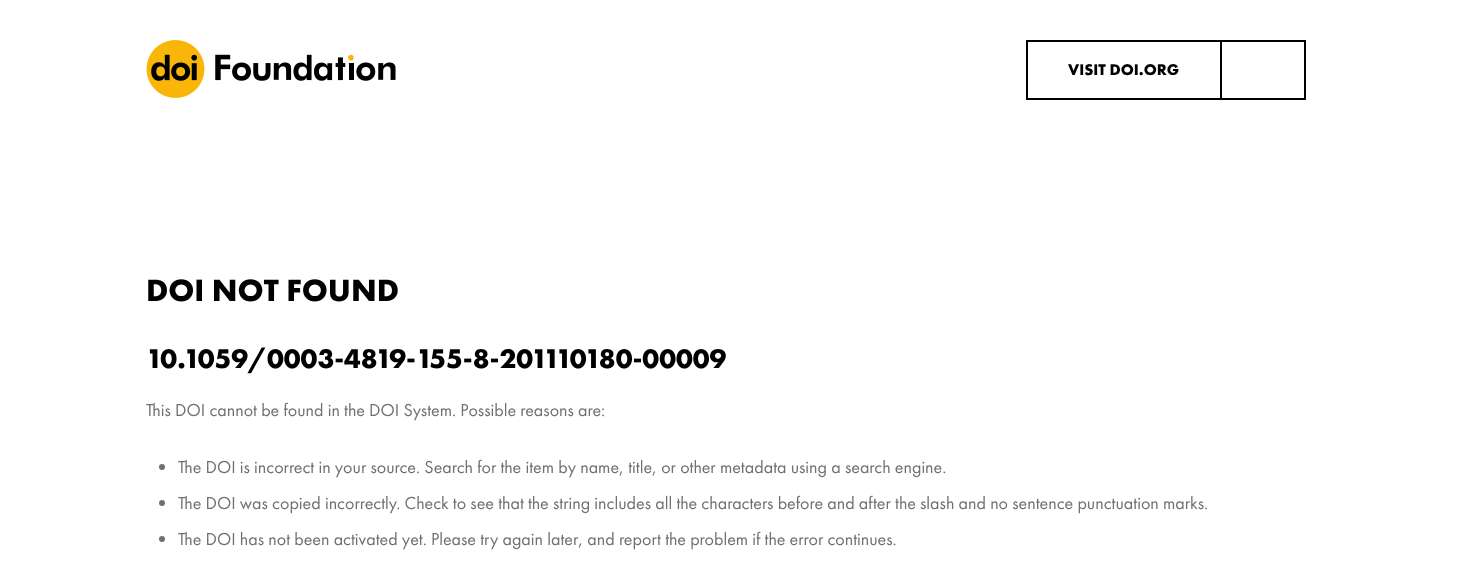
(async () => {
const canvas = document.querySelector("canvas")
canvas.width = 1464
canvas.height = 572
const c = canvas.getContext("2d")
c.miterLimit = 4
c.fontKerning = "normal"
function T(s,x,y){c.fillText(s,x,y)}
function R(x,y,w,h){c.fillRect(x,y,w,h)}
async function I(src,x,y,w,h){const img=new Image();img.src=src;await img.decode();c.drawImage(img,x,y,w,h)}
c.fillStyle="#fff"
R(0,0,1464,572)
await I("1.png",146,40,250,58)
c.strokeStyle="#000"
c.lineWidth=2
c.strokeRect(1027,41,278,58)
c.fillStyle="#000"
R(1220,42,2,56)
c.font="bold 16px Futura PT"
T("VISIT DOI.ORG",1068,75)
c.font="bold 32px Futura PT"
T("DOI NOT FOUND",146,301)
c.font="bold 28px Futura PT"
T("10.1059/0003-4819-155-8-201110180-00009",146,368)
c.font="18px Futura PT"
c.fillStyle="#707070"
T("This DOI cannot be found in the DOI System. Possible reasons are:",146,416)
c.beginPath()
c.arc(162,467,3,0,7)
c.fill()
T("The DOI is incorrect in your source. Search for the item by name, title, or other metadata using a search engine.",178,473)
c.beginPath()
c.arc(162,503,3,0,7)
c.fill()
T("The DOI was copied incorrectly. Check to see that the string includes all the characters before and after the slash and no sentence punctuation marks.",178,509)
c.beginPath()
c.arc(162,539,3,0,7)
c.fill()
T("The DOI has not been activated yet. Please try again later, and report the problem if the error continues.",178,545)
})()
